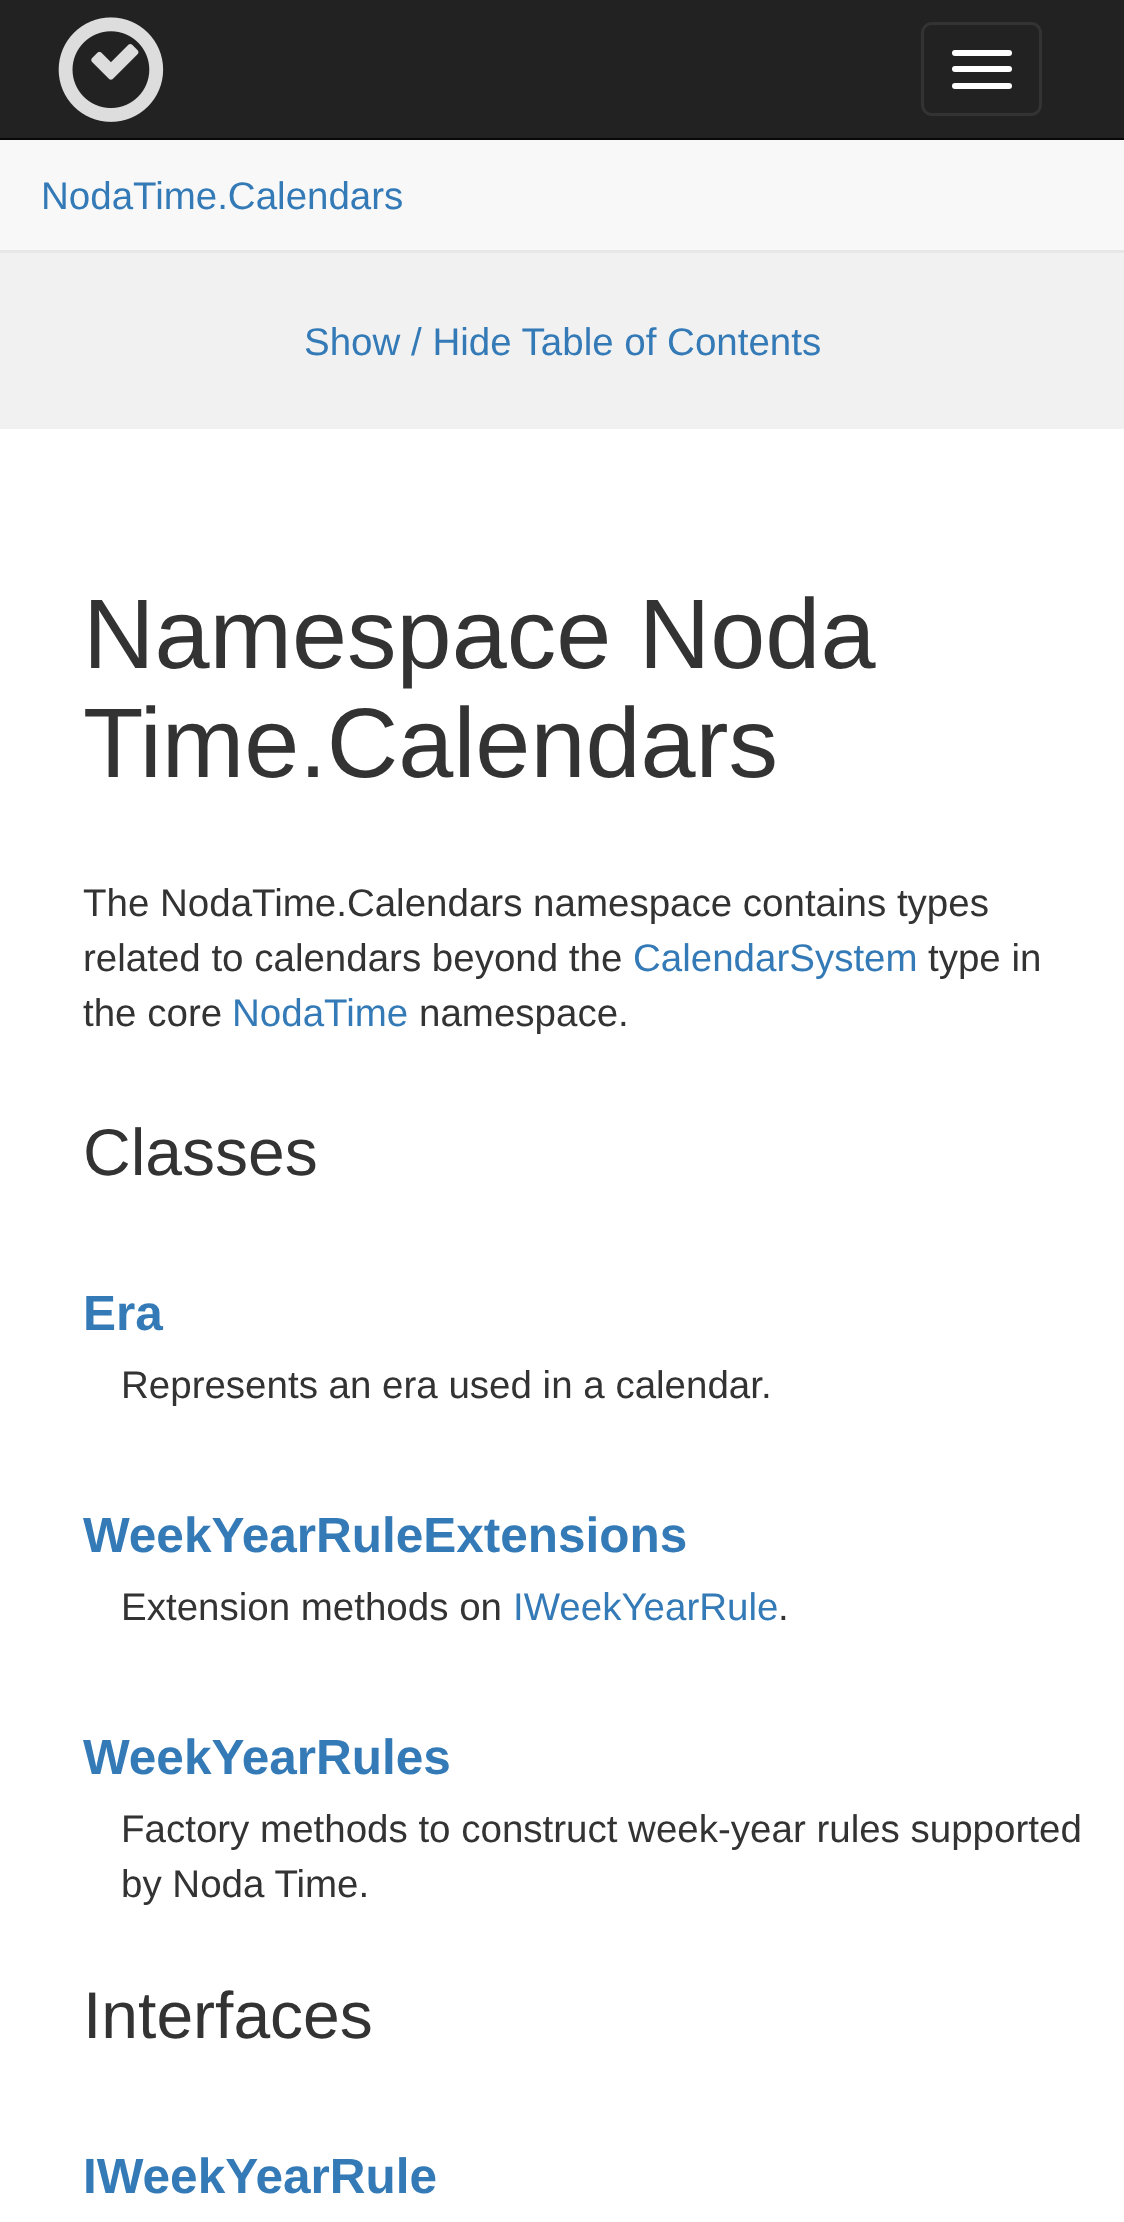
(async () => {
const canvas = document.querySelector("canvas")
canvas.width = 1124
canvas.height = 2222
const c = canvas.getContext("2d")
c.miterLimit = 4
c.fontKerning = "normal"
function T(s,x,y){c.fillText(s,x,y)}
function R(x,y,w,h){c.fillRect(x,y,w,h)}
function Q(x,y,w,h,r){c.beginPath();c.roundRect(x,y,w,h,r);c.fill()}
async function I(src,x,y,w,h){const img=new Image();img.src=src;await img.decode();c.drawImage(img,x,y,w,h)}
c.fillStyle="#fff"
R(0,0,1124,2222)
c.fillStyle="#222"
R(0,0,1124,138)
c.fillStyle="#080808"
R(0,138,1124,2)
await I("1.png",58,17,106,105)
c.beginPath()
c.roundRect(922.5,23.5,118,91,9.5)
c.strokeStyle="#333"
c.lineWidth=3
c.stroke()
c.fillStyle="#fff"
Q(952,50,60,6,3)
Q(952,66,60,6,3)
Q(952,83,60,6,3)
c.fillStyle="#f8f8f8"
R(0,140,1124,110)
c.fillStyle="#e7e7e7"
R(0,250,1124,3)
c.font="38.5px Liberation Sans"
c.fillStyle="#337ab7"
T("NodaTime.Calendars",41,209)
c.fillStyle="#f1f1f1"
R(0,253,1124,176)
c.fillStyle="#337ab7"
T("Show / Hide Table of Contents",304,355)
c.font="99px Liberation Sans"
c.fillStyle="#333"
T("Namespace Noda",83,668)
T("Time.Calendars",83,777)
c.font="38.5px Liberation Sans"
T("The NodaTime.Calendars namespace contains types",83,916)
T("related to calendars beyond the",83,971)
c.fillStyle="#337ab7"
T("CalendarSystem",633,971)
c.fillStyle="#333"
T("type in",928,971)
T("the core",83,1026)
c.fillStyle="#337ab7"
T("NodaTime",232,1026)
c.fillStyle="#333"
T("namespace.",419,1026)
c.font="66px Liberation Sans"
T("Classes",83,1175)
c.font="bold 49.5px Liberation Sans"
c.fillStyle="#337ab7"
T("Era",83,1330)
c.font="38.5px Liberation Sans"
c.fillStyle="#333"
T("Represents an era used in a calendar.",121,1398)
c.font="bold 49.5px Liberation Sans"
c.fillStyle="#337ab7"
T("WeekYearRuleExtensions",83,1552)
c.font="38.5px Liberation Sans"
c.fillStyle="#333"
T("Extension methods on",121,1620)
c.fillStyle="#337ab7"
T("IWeekYearRule",513,1620)
c.fillStyle="#333"
T(".",778,1620)
c.font="bold 49.5px Liberation Sans"
c.fillStyle="#337ab7"
T("WeekYearRules",83,1774)
c.font="38.5px Liberation Sans"
c.fillStyle="#333"
T("Factory methods to construct week-year rules supported",121,1842)
T("by Noda Time.",121,1897)
c.font="66px Liberation Sans"
T("Interfaces",83,2038)
c.font="bold 49.5px Liberation Sans"
c.fillStyle="#337ab7"
T("IWeekYearRule",83,2193)
})()
